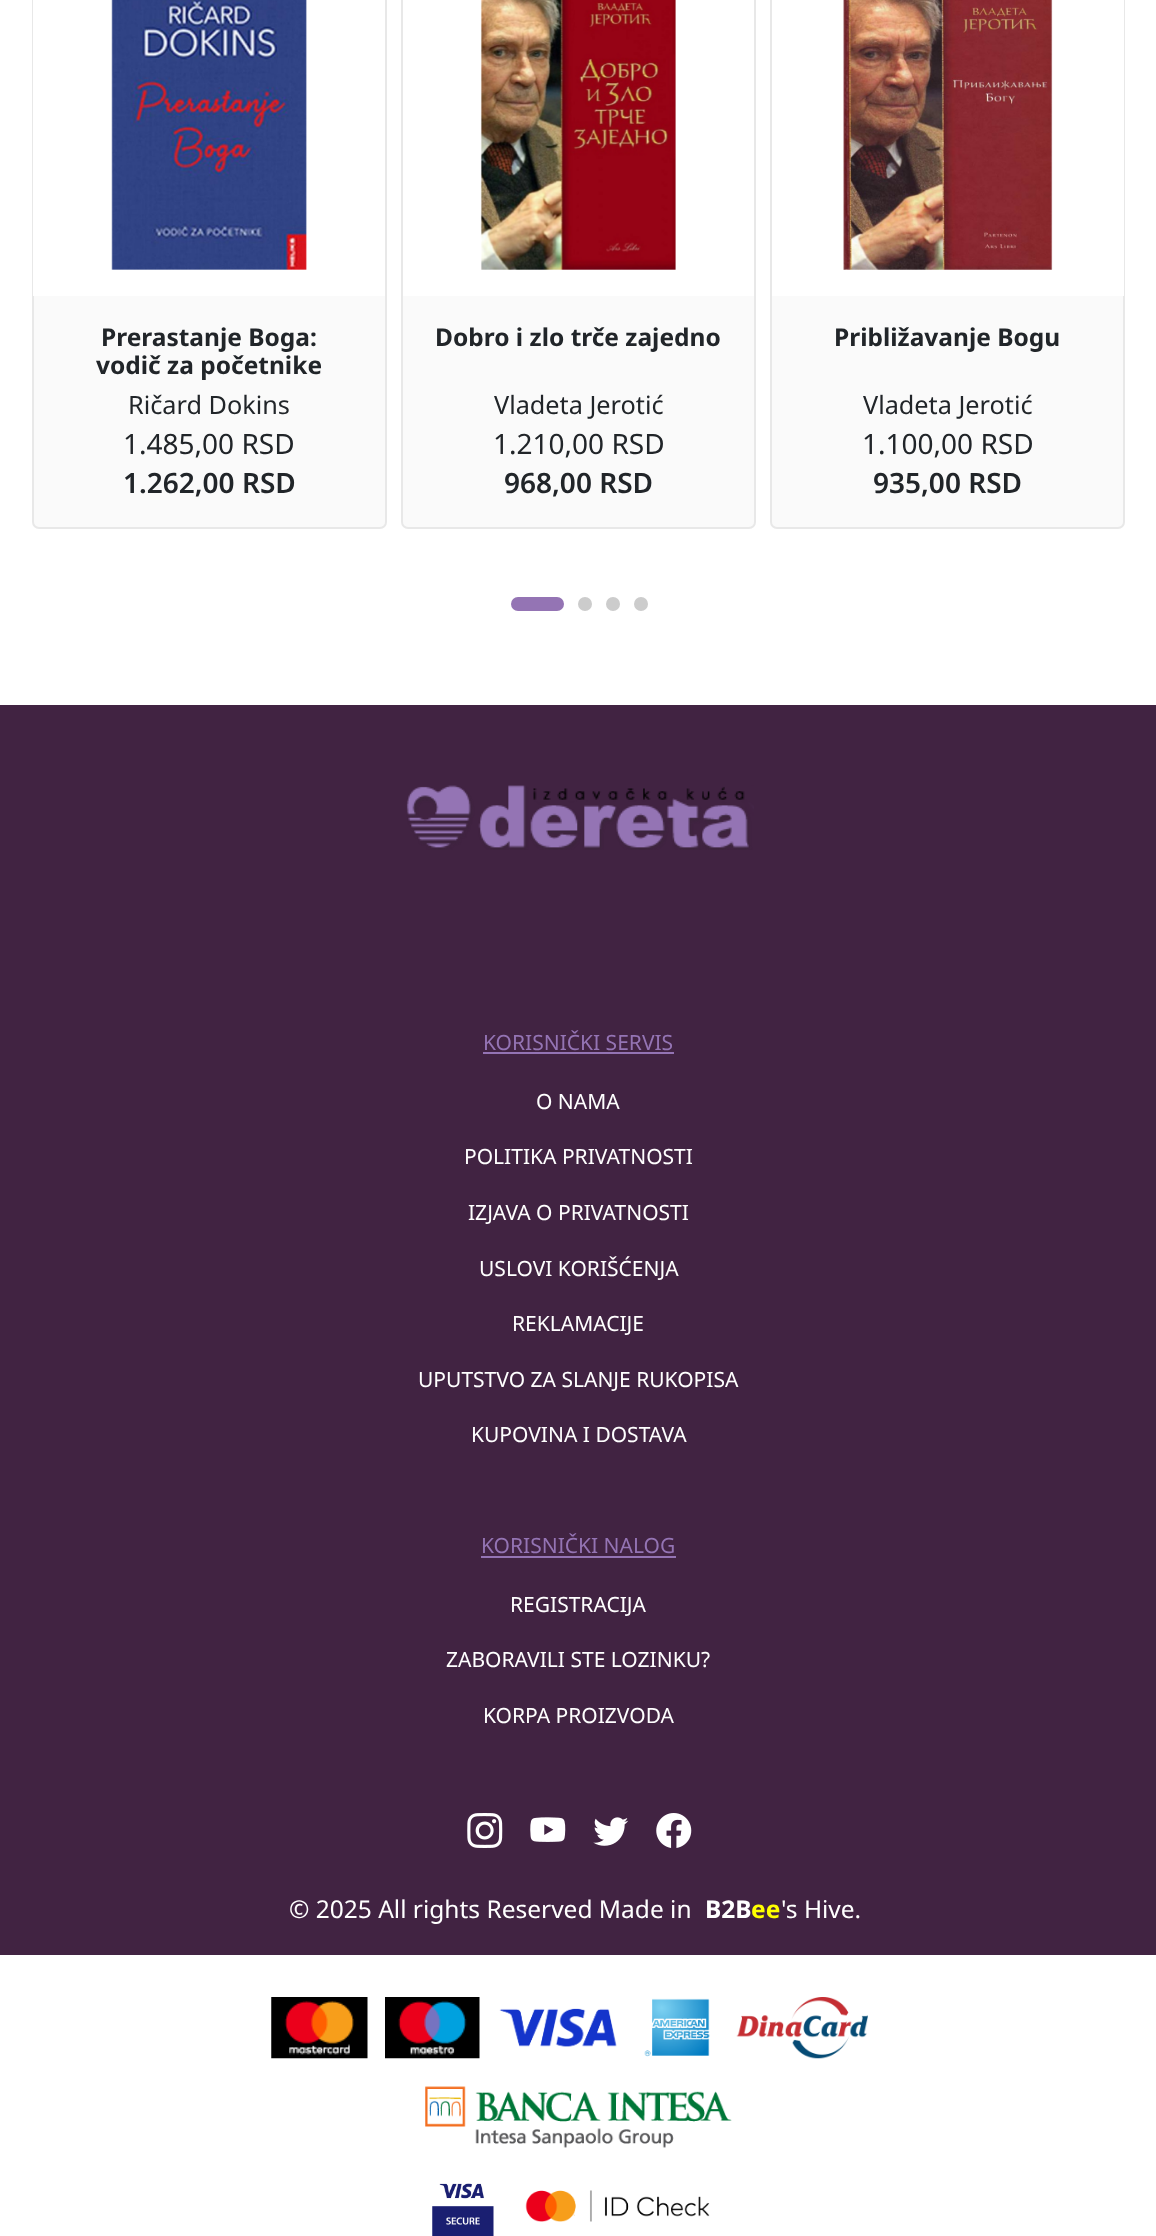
(async () => {
const canvas = document.querySelector("canvas")
canvas.width = 1156
canvas.height = 2236
const c = canvas.getContext("2d")
c.miterLimit = 4
c.fontKerning = "normal"
function T(s,x,y){c.fillText(s,x,y)}
function R(x,y,w,h){c.fillRect(x,y,w,h)}
function Q(x,y,w,h,r){c.beginPath();c.roundRect(x,y,w,h,r);c.fill()}
async function I(src,x,y,w,h){const img=new Image();img.src=src;await img.decode();c.drawImage(img,x,y,w,h)}
c.fillStyle="#fff"
R(0,0,1156,2236)
c.fillStyle="#fafafa"
Q(33,-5,352,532,5)
c.beginPath()
c.roundRect(33,-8,353,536,6)
c.strokeStyle="#e8e8e8"
c.lineWidth=2
c.stroke()
c.fillStyle="#fff"
R(33,0,352,296)
await I("1.png",111,0,196,270)
c.font="bold 24.5px Noto Sans"
c.fillStyle="#212529"
T("Prerastanje Boga:",101,346)
T("vodič za početnike",96,374)
c.font="25.25px Noto Sans"
T("Ričard Dokins",128,414)
c.font="28px Noto Sans"
T("1.485,00 RSD",123,454)
c.font="600 28px Noto Sans"
T("1.262,00 RSD",123,493)
c.fillStyle="#fafafa"
Q(403,-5,351,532,5)
c.beginPath()
c.roundRect(402,-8,353,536,6)
c.stroke()
c.fillStyle="#fff"
R(403,0,351,296)
await I("2.png",480,0,196,270)
c.font="bold 24.5px Noto Sans"
c.fillStyle="#212529"
T("Dobro i zlo trče zajedno",435,346)
c.font="25.25px Noto Sans"
T("Vladeta Jerotić",494,414)
c.font="28px Noto Sans"
T("1.210,00 RSD",493,454)
c.font="600 28px Noto Sans"
T("968,00 RSD",504,493)
c.fillStyle="#fafafa"
Q(772,-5,352,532,5)
c.beginPath()
c.roundRect(771,-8,353,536,6)
c.stroke()
c.fillStyle="#fff"
R(772,0,352,296)
await I("3.png",843,0,210,270)
c.font="bold 24.5px Noto Sans"
c.fillStyle="#212529"
T("Približavanje Bogu",834,346)
c.font="25.25px Noto Sans"
T("Vladeta Jerotić",863,414)
c.font="28px Noto Sans"
T("1.100,00 RSD",862,454)
c.font="600 28px Noto Sans"
T("935,00 RSD",873,493)
c.fillStyle="#9474b4"
Q(511,597,53,14,7)
c.fillStyle="#ccc"
c.beginPath()
c.arc(585,604,7,0,7)
c.fill()
c.beginPath()
c.arc(613,604,7,0,7)
c.fill()
c.beginPath()
c.arc(641,604,7,0,7)
c.fill()
c.fillStyle="#412342"
R(0,705,1156,1250)
await I("4.png",406,785,348,65)
c.font="21px Noto Sans"
c.fillStyle="#9474b4"
T("KORISNIČKI SERVIS",483,1050)
R(483,1052,191,2)
c.fillStyle="#fff"
T("O NAMA",536,1109)
T("POLITIKA PRIVATNOSTI",464,1164)
T("IZJAVA O PRIVATNOSTI",468,1220)
T("USLOVI KORIŠĆENJA",479,1276)
T("REKLAMACIJE",512,1331)
T("UPUTSTVO ZA SLANJE RUKOPISA",418,1387)
T("KUPOVINA I DOSTAVA",471,1442)
c.fillStyle="#9474b4"
T("KORISNIČKI NALOG",481,1553)
R(481,1556,195,2)
c.fillStyle="#fff"
T("REGISTRACIJA",510,1612)
T("ZABORAVILI STE LOZINKU?",446,1667)
T("KORPA PROIZVODA",483,1723)
await I("5.png",467,1813,36,35)
await I("6.png",530,1817,36,25)
await I("7.png",593,1817,36,29)
await I("8.png",656,1813,36,35)
c.font="24.5px Noto Sans"
T("© 2025 All rights Reserved Made in",289,1918)
c.font="bold 24.5px Noto Sans"
T("B2B",705,1918)
c.fillStyle="#ff0"
T("ee",751,1918)
c.font="24.5px Noto Sans"
c.fillStyle="#fff"
T("'s Hive.",781,1918)
await I("9.png",271,1997,97,62)
await I("10.png",385,1997,95,62)
await I("11.png",499,2008,118,39)
await I("12.png",644,1998,66,59)
await I("13.png",736,1997,132,62)
await I("14.png",425,2086,307,62)
await I("15.png",432,2183,62,53)
await I("16.png",525,2190,185,32)
})()
